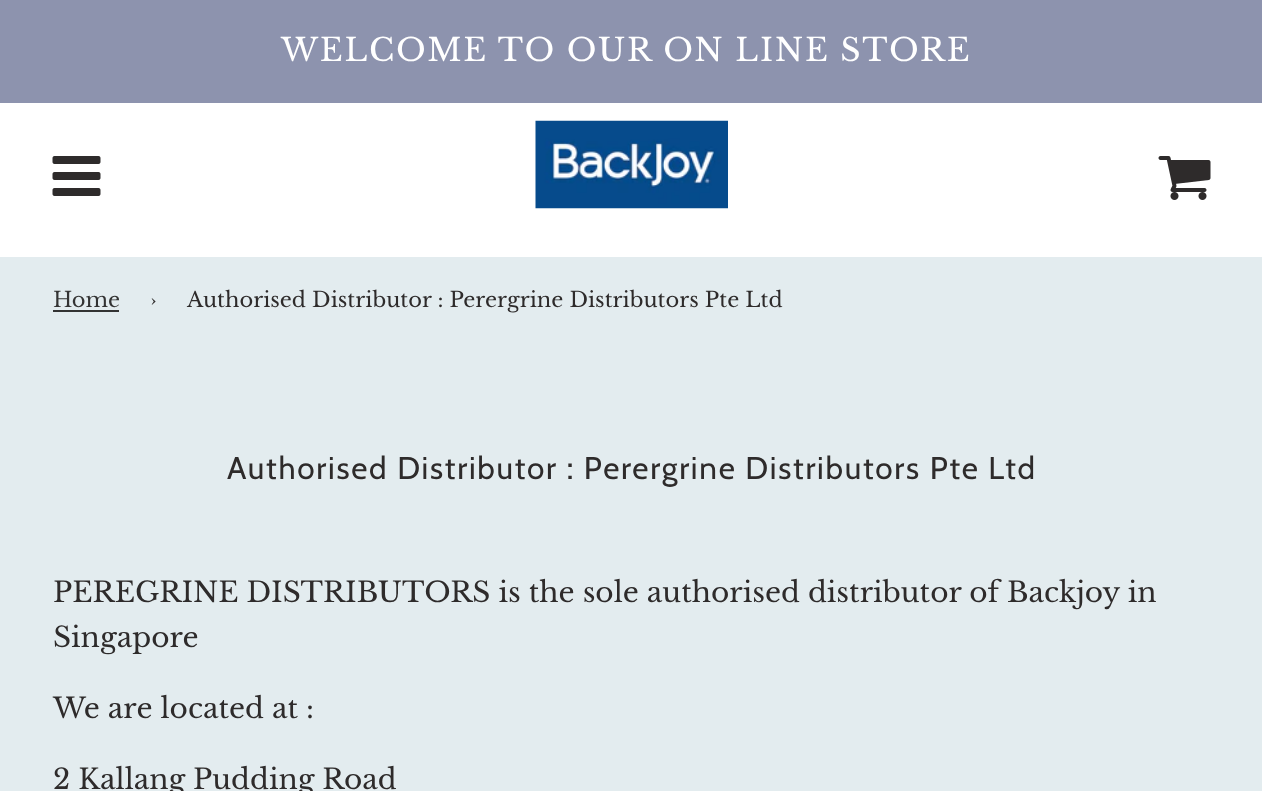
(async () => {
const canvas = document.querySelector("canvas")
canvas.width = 1262
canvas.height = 791
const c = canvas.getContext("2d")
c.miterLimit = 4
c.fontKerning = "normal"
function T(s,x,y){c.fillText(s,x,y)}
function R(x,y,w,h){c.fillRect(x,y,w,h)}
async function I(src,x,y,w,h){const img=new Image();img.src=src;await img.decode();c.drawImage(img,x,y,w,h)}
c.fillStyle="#e3ecef"
R(0,0,1262,791)
c.fillStyle="#8d93ae"
R(0,0,1262,103)
c.letterSpacing="1.75px"
c.font="31.5px Libre Baskerville"
c.fillStyle="#fff"
T("WELCOME TO OUR ON LINE STORE",281,61)
R(0,103,1262,154)
await I("1.png",52,156,49,40)
await I("2.png",535,120,193,89)
await I("3.png",1158,156,53,44)
c.letterSpacing="0px"
c.font="21px Libre Baskerville"
c.fillStyle="#333"
T("Home",53,307)
R(53,310,66,2)
c.fillStyle="#2e2b2b"
T("›",150,307)
T("Authorised Distributor : Perergrine Distributors Pte Ltd",187,307)
c.letterSpacing="1.75px"
c.font="31.5px Cabin"
T("Authorised Distributor : Perergrine Distributors Pte Ltd",227,479)
c.letterSpacing="0px"
c.font="28px Libre Baskerville"
T("PEREGRINE DISTRIBUTORS is the sole authorised distributor of Backjoy in",53,602)
T("Singapore",53,647)
T("We are located at :",53,718)
T("2 Kallang Pudding Road",53,789)
})()
